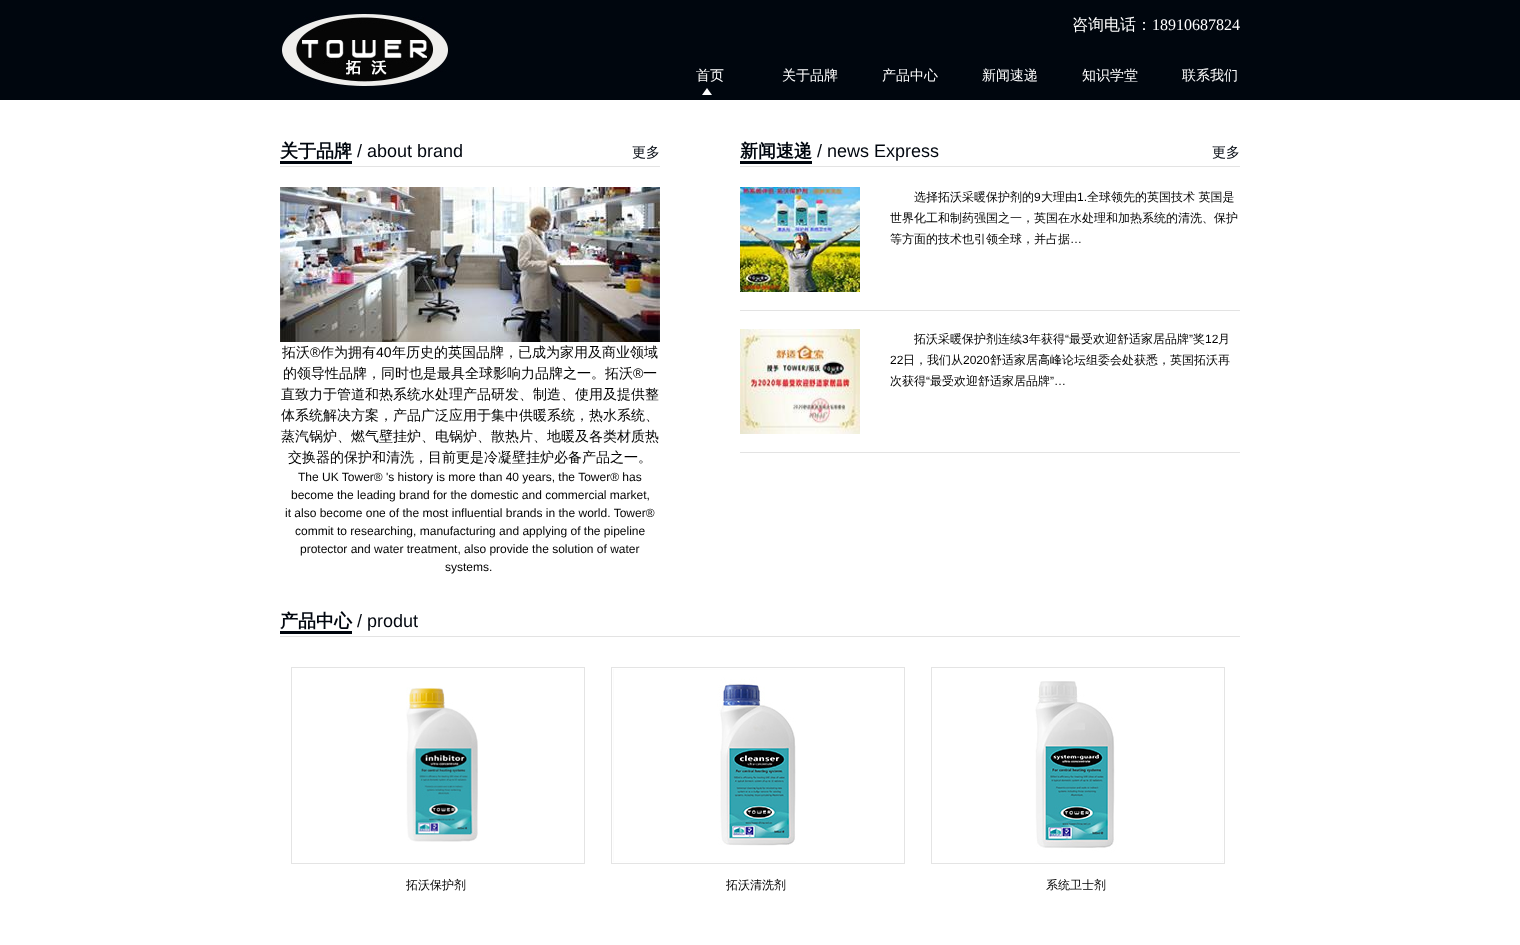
(async () => {
const canvas = document.querySelector("canvas")
canvas.width = 1520
canvas.height = 945
const c = canvas.getContext("2d")
c.miterLimit = 4
c.fontKerning = "normal"
function T(s,x,y){c.fillText(s,x,y)}
function R(x,y,w,h){c.fillRect(x,y,w,h)}
async function I(src,x,y,w,h){const img=new Image();img.src=src;await img.decode();c.drawImage(img,x,y,w,h)}
c.fillStyle="#fff"
R(0,0,1520,945)
c.fillStyle="#00060e"
R(0,0,1520,100)
await I("1.png",282,14,166,72)
c.font="500 16px WenQuanYi Zen Hei"
c.fillStyle="#fff"
T("咨询电话：",1072,30)
c.font="16px Liberation Serif"
T("18910687824",1152,30)
await I("2.png",702,88,10,7)
c.font="500 14px WenQuanYi Zen Hei"
T("首页",696,80)
T("关于品牌",782,80)
T("产品中心",882,80)
T("新闻速递",982,80)
T("知识学堂",1082,80)
T("联系我们",1182,80)
c.fillStyle="#e3e3e3"
R(280,166,380,1)
c.font="bold 18px WenQuanYi Zen Hei"
c.fillStyle="#00060e"
T("关于品牌",280,157)
R(280,161,72,3)
c.font="18px Liberation Sans"
T("/ about brand",357,157)
c.font="500 14px WenQuanYi Zen Hei"
T("更多",632,157)
await I("3.png",280,187,380,155)
c.fillStyle="#000"
T("拓沃",282,357)
c.font="14px Liberation Sans"
T("®",310,357)
c.font="500 14px WenQuanYi Zen Hei"
T("作为拥有",320,357)
c.font="14px Liberation Sans"
T("40",376,357)
c.font="500 14px WenQuanYi Zen Hei"
T("年历史的英国品牌，已成为家用及商业领域",392,357)
T("的领导性品牌，同时也是最具全球影响力品牌之一。拓沃",283,378)
c.font="14px Liberation Sans"
T("®",633,378)
c.font="500 14px WenQuanYi Zen Hei"
T("一",643,378)
T("直致力于管道和热系统水处理产品研发、制造、使用及提供整",281,399)
T("体系统解决方案，产品广泛应用于集中供暖系统，热水系统、",281,420)
T("蒸汽锅炉、燃气壁挂炉、电锅炉、散热片、地暖及各类材质热",281,441)
T("交换器的保护和清洗，目前更是冷凝壁挂炉必备产品之一。",288,462)
c.font="12px Liberation Sans"
T("The UK Tower® 's history is more than 40 years, the Tower® has",298,481)
T("become the leading brand for the domestic and commercial market,",291,499)
T("it also become one of the most influential brands in the world. Tower®",285,517)
T("commit to researching, manufacturing and applying of the pipeline",295,535)
T("protector and water treatment, also provide the solution of water",300,553)
T("systems.",445,571)
c.fillStyle="#e3e3e3"
R(740,166,500,1)
c.font="bold 18px WenQuanYi Zen Hei"
c.fillStyle="#00060e"
T("新闻速递",740,157)
R(740,161,72,3)
c.font="18px Liberation Sans"
T("/ news Express",817,157)
c.font="500 14px WenQuanYi Zen Hei"
T("更多",1212,157)
c.fillStyle="#e3e3e3"
R(740,310,500,1)
await I("4.png",740,187,120,105)
c.font="500 12px WenQuanYi Zen Hei"
c.fillStyle="#000"
T("选择拓沃采暖保护剂的",914,201)
c.font="12px Liberation Sans"
T("9",1034,201)
c.font="500 12px WenQuanYi Zen Hei"
T("大理由",1041,201)
c.font="12px Liberation Sans"
T("1.",1077,201)
c.font="500 12px WenQuanYi Zen Hei"
T("全球领先的英国技术 英国是",1087,201)
T("世界化工和制药强国之一，英国在水处理和加热系统的清洗、保护",890,222)
T("等方面的技术也引领全球，并占据",890,243)
c.font="12px Liberation Sans"
T("…",1070,243)
c.fillStyle="#e3e3e3"
R(740,452,500,1)
await I("5.png",740,329,120,105)
c.font="500 12px WenQuanYi Zen Hei"
c.fillStyle="#000"
T("拓沃采暖保护剂连续",914,343)
c.font="12px Liberation Sans"
T("3",1022,343)
c.font="500 12px WenQuanYi Zen Hei"
T("年获得",1029,343)
c.font="12px Liberation Sans"
T("“",1065,343)
c.font="500 12px WenQuanYi Zen Hei"
T("最受欢迎舒适家居品牌",1069,343)
c.font="12px Liberation Sans"
T("”",1189,343)
c.font="500 12px WenQuanYi Zen Hei"
T("奖",1193,343)
c.font="12px Liberation Sans"
T("12",1205,343)
c.font="500 12px WenQuanYi Zen Hei"
T("月",1218,343)
c.font="12px Liberation Sans"
T("22",890,364)
c.font="500 12px WenQuanYi Zen Hei"
T("日，我们从",903,364)
c.font="12px Liberation Sans"
T("2020",963,364)
c.font="500 12px WenQuanYi Zen Hei"
T("舒适家居高峰论坛组委会处获悉，英国拓沃再",990,364)
T("次获得",890,385)
c.font="12px Liberation Sans"
T("“",926,385)
c.font="500 12px WenQuanYi Zen Hei"
T("最受欢迎舒适家居品牌",930,385)
c.font="12px Liberation Sans"
T("”…",1050,385)
c.fillStyle="#e3e3e3"
R(280,636,960,1)
c.font="bold 18px WenQuanYi Zen Hei"
c.fillStyle="#00060e"
T("产品中心",280,627)
R(280,631,72,3)
c.font="18px Liberation Sans"
T("/ produt",357,627)
c.strokeStyle="#e4e4e4"
c.strokeRect(291.5,667.5,293,196)
await I("6.png",406,687,72,155)
c.font="500 12px WenQuanYi Zen Hei"
c.fillStyle="#000"
T("拓沃保护剂",406,889)
c.strokeRect(611.5,667.5,293,196)
await I("7.png",613,669,183,193)
T("拓沃清洗剂",726,889)
c.strokeRect(931.5,667.5,293,196)
await I("8.png",1035,681,188,181)
T("系统卫士剂",1046,889)
})()
